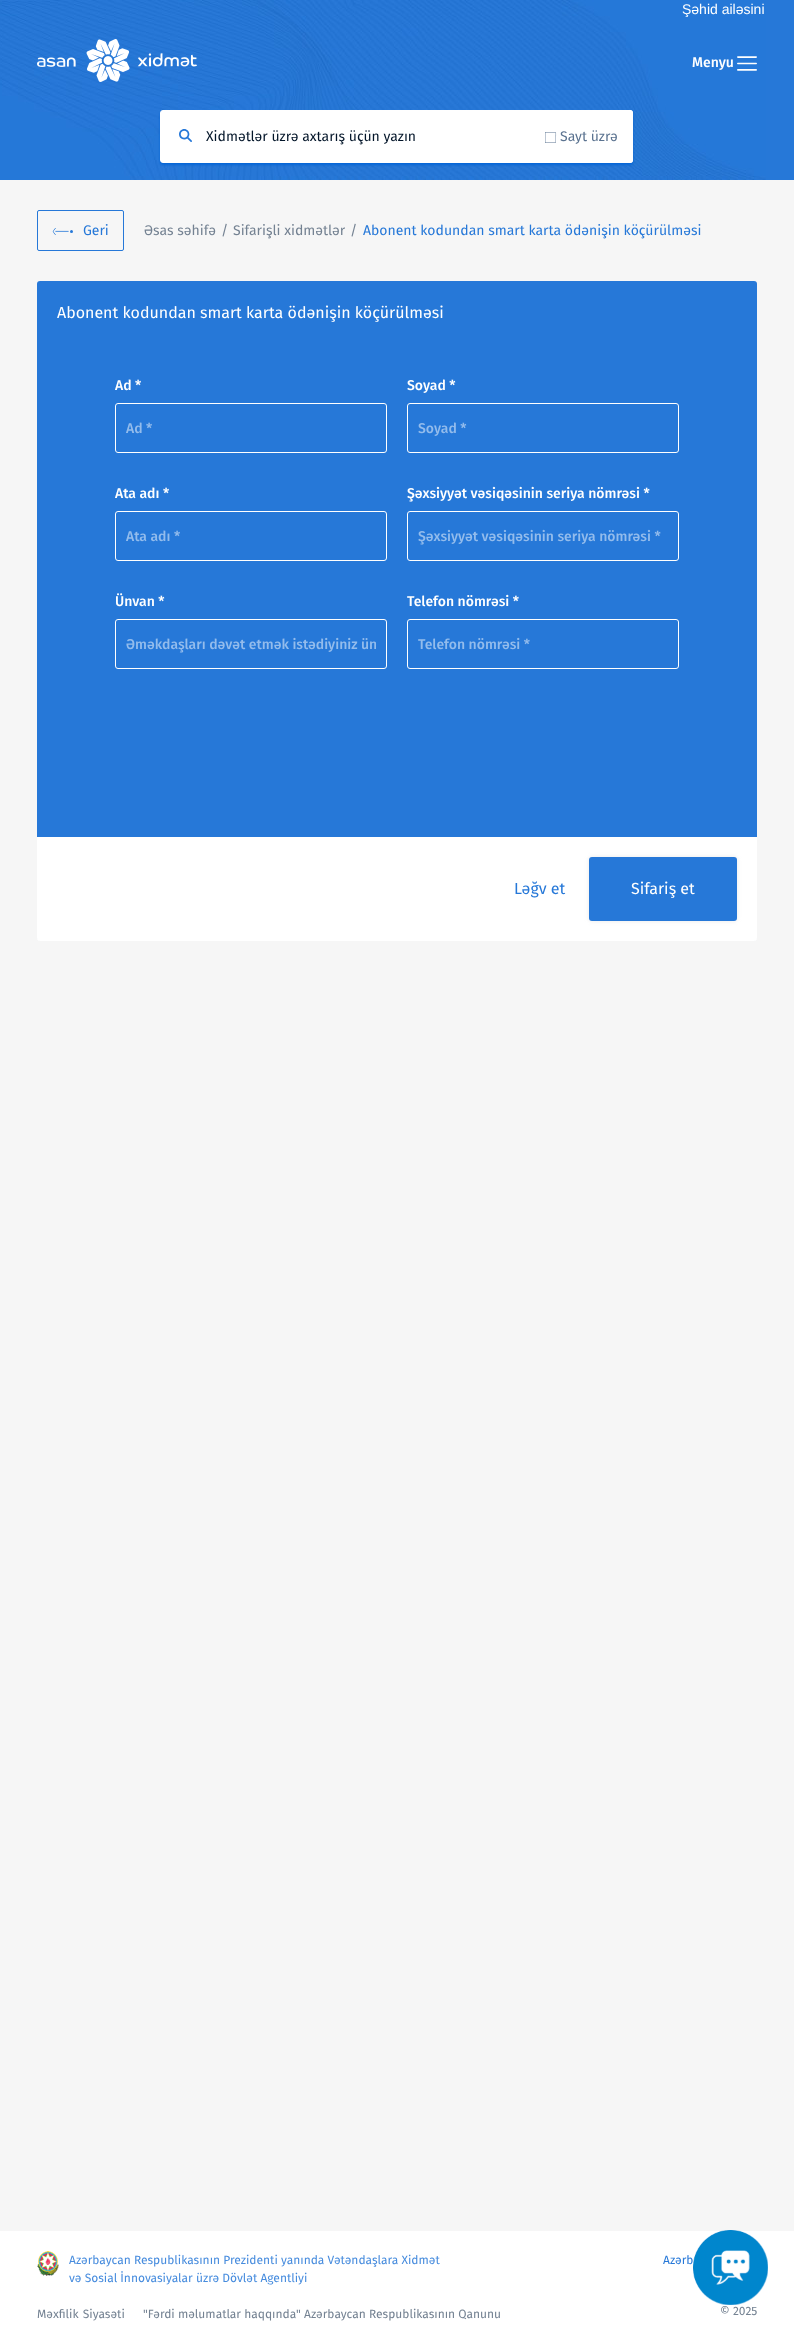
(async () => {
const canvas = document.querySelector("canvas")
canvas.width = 794
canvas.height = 2331
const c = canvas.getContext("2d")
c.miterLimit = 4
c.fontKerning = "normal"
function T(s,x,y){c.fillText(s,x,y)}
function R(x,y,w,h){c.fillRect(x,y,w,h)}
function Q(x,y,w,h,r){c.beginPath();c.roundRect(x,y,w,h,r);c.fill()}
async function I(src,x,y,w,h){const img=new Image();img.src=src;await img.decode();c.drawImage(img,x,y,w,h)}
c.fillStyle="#f6f6f6"
R(0,0,794,2331)
c.fillStyle="#2678d8"
R(766,0,28,180)
await I("1.png",0,0,766,180)
c.font="14px Liberation Sans"
c.fillStyle="#fff"
T("Şəhid ailəsini",682,14)
await I("2.png",37,39,160,43)
c.font="500 14px Fira Sans"
T("Menyu",692,67)
await I("3.png",737,56,20,15)
c.fillStyle="#0666d6"
c.filter="blur(1px)"
c.beginPath()
c.roundRect(160,112,473,53,3)
c.fill()
c.filter="none"
c.fillStyle="#fff"
c.beginPath()
c.roundRect(160.5,110.5,472,52,2.5)
c.fill()
c.strokeStyle="#fff"
c.stroke()
await I("4.png",179,129,13,13)
c.font="14px Fira Sans"
c.fillStyle="#031529"
T("Xidmətlər üzrə axtarış üçün yazın",206,141)
c.fillStyle="#fff"
c.beginPath()
c.roundRect(535,110,98,53,[0,3,3,0])
c.fill()
await I("5.png",545,132,12,11)
c.fillStyle="#5b7390"
T("Sayt üzrə",560,141)
c.beginPath()
c.roundRect(37.5,210.5,86,40,1.5)
c.strokeStyle="#2678d8"
c.stroke()
await I("6.png",52,228,21,7)
c.fillStyle="#2678d8"
T("Geri",83,235)
c.fillStyle="#748292"
T("Əsas səhifə",144,235)
T("/",221,235)
T("Sifarişli xidmətlər",233,235)
T("/",350,235)
c.fillStyle="#2678d8"
T("Abonent kodundan smart karta ödənişin köçürülməsi",363,235)
c.beginPath()
c.roundRect(37,281,720,660,[3,3,5,5])
c.fill()
c.font="16px Fira Sans"
c.fillStyle="#fff"
T("Abonent kodundan smart karta ödənişin köçürülməsi",57,318)
c.font="500 14px Fira Sans"
T("Ad *",115,390)
c.beginPath()
c.roundRect(115.5,403.5,271,49,2.5)
c.strokeStyle="#fff"
c.stroke()
c.fillStyle="#93bcec"
T("Ad *",126,433)
c.fillStyle="#fff"
T("Soyad *",407,390)
c.beginPath()
c.roundRect(407.5,403.5,271,49,2.5)
c.stroke()
c.fillStyle="#93bcec"
T("Soyad *",418,433)
c.fillStyle="#fff"
T("Ata adı *",115,498)
c.beginPath()
c.roundRect(115.5,511.5,271,49,2.5)
c.stroke()
c.fillStyle="#93bcec"
T("Ata adı *",126,541)
c.fillStyle="#fff"
T("Şəxsiyyət vəsiqəsinin seriya nömrəsi *",407,498)
c.beginPath()
c.roundRect(407.5,511.5,271,49,2.5)
c.stroke()
c.fillStyle="#93bcec"
T("Şəxsiyyət vəsiqəsinin seriya nömrəsi *",418,541)
c.fillStyle="#fff"
T("Ünvan *",115,606)
c.beginPath()
c.roundRect(115.5,619.5,271,49,2.5)
c.stroke()
c.save()
c.beginPath()
c.rect(126,636,250,17)
c.clip()
c.fillStyle="#93bcec"
T("Əməkdaşları dəvət etmək istədiyiniz ün",126,649)
c.restore()
T("Telefon nömrəsi *",407,606)
c.beginPath()
c.roundRect(407.5,619.5,271,49,2.5)
c.stroke()
c.fillStyle="#93bcec"
T("Telefon nömrəsi *",418,649)
c.fillStyle="#fff"
c.beginPath()
c.roundRect(37,837,720,104,[0,0,3,3])
c.fill()
c.font="16px Fira Sans"
c.fillStyle="#2678d8"
T("Ləğv et",514,894)
c.fillStyle="#d4d4d480"
c.filter="blur(2px)"
c.beginPath()
c.roundRect(589,857,148,64,3)
c.fill()
c.filter="none"
c.fillStyle="#2678d8"
Q(589,857,148,64,3)
c.fillStyle="#fff"
T("Sifariş et",631,894)
R(0,2231,794,100)
await I("7.png",693,2230,75,75)
await I("8.png",37,2251,22,25)
c.font="12px Fira Sans"
c.fillStyle="#478cde"
T("Azərbaycan Respublikasının Prezidenti yanında Vətəndaşlara Xidmət",69,2264)
T("və Sosial İnnovasiyalar üzrə Dövlət Agentliyi",69,2282)
c.fillStyle="#2678d8"
T("Azərb",663,2264)
c.wordSpacing="1px"
c.fillStyle="#748292"
T("Məxfilik Siyasəti",37,2318)
c.wordSpacing="0px"
T("\"Fərdi məlumatlar haqqında\" Azərbaycan Respublikasının Qanunu",143,2318)
T("© 2025",720,2315)
})()
